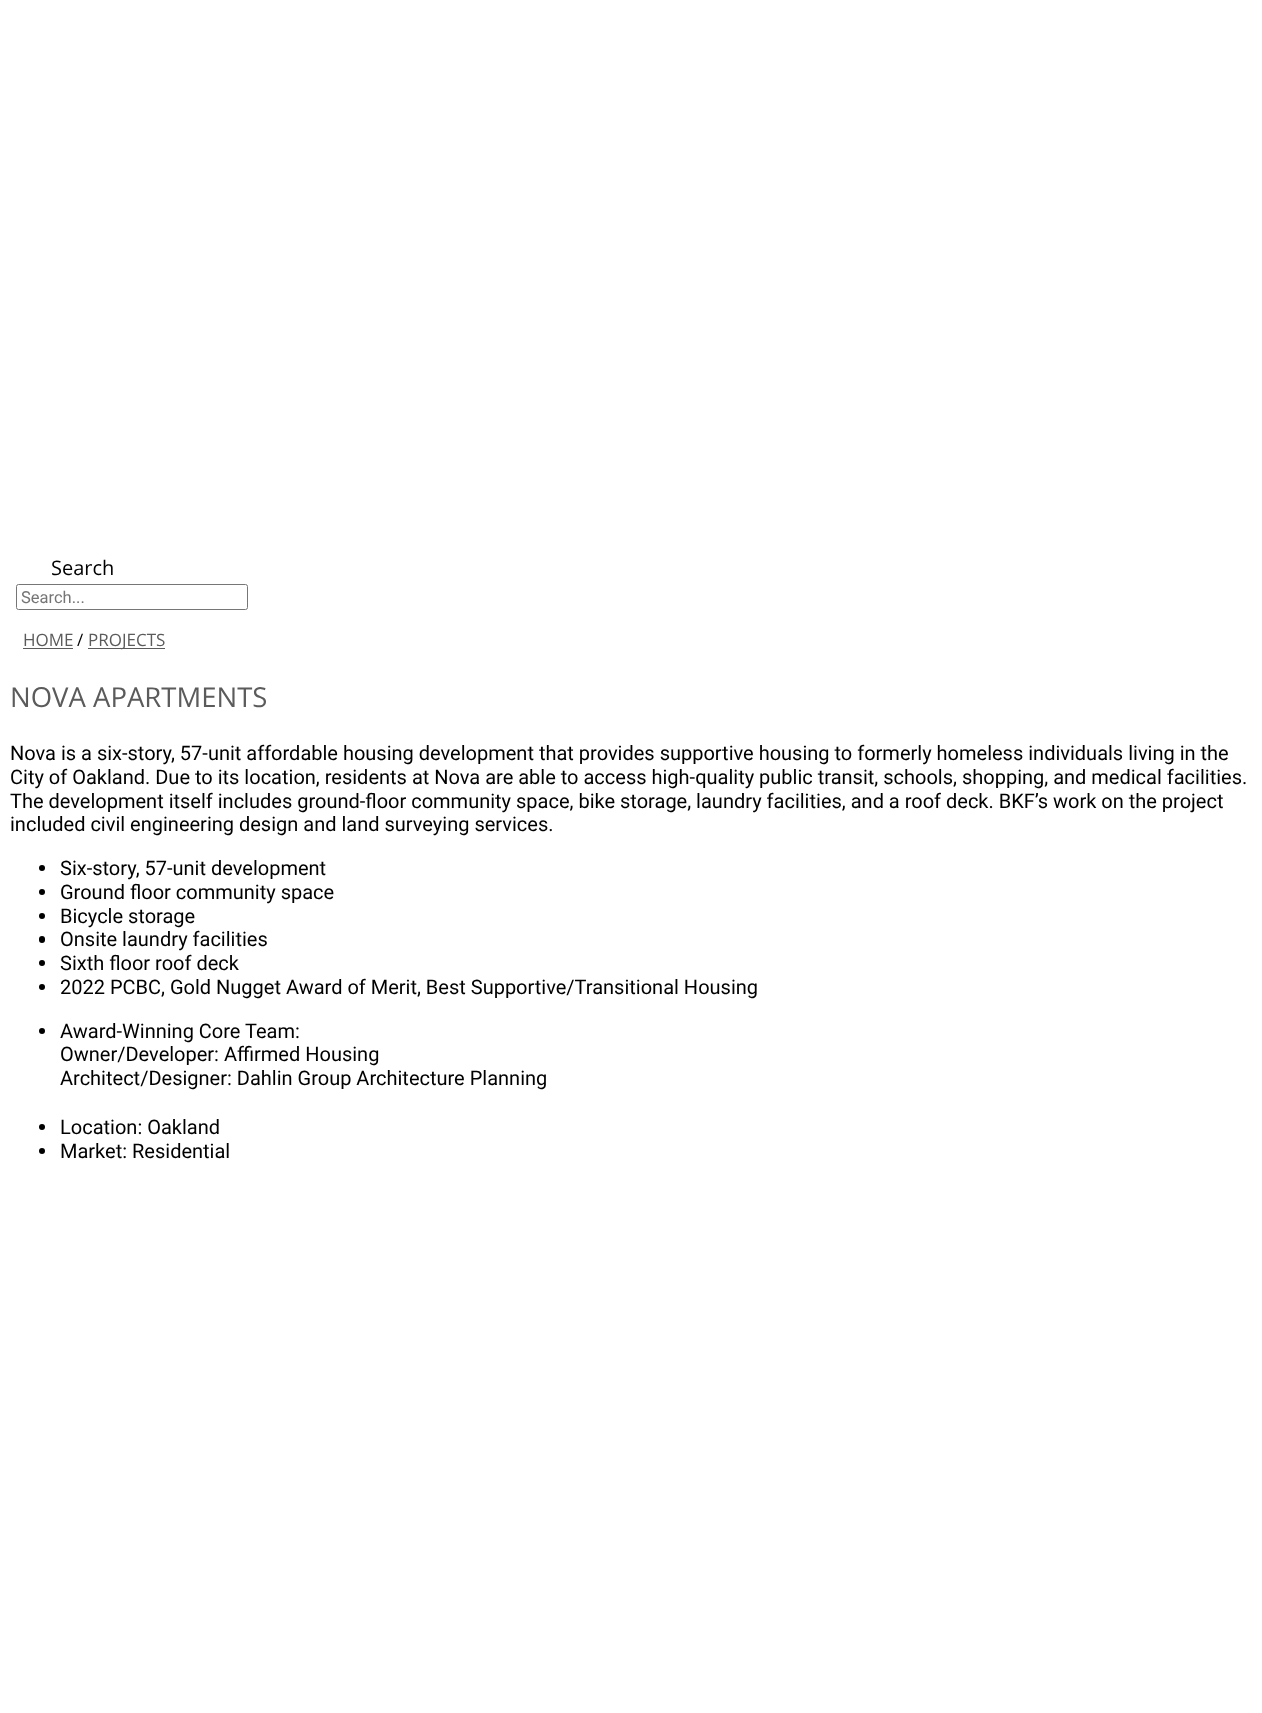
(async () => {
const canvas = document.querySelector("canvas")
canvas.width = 1262
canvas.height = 1713
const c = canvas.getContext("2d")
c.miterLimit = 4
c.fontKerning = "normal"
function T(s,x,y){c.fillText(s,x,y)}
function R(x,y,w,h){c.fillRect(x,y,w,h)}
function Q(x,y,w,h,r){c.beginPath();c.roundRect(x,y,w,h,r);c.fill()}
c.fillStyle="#fff"
R(0,0,1262,1713)
c.font="20px Open Sans"
c.fillStyle="#000"
T("Search",51,575)
c.beginPath()
c.roundRect(16.5,584.5,231,25,2)
c.strokeStyle="#767676"
c.stroke()
c.font="16.5px Roboto"
c.fillStyle="#757575"
T("Search...",21,603)
c.font="17px Open Sans"
c.fillStyle="#5b5b5b"
T("HOME",23,646)
R(23,648,50,1)
c.fillStyle="#000"
T("/",77,646)
c.fillStyle="#5b5b5b"
R(88,648,77,1)
T("PROJECTS",88,646)
c.font="27.5px Open Sans"
T("NOVA APARTMENTS",10,707)
c.font="20px Roboto"
c.fillStyle="#000"
T("Nova is a six-story, 57-unit affordable housing development that provides supportive housing to formerly homeless individuals living in the",10,760)
T("City of Oakland. Due to its location, residents at Nova are able to access high-quality public transit, schools, shopping, and medical facilities.",10,784)
T("The development itself includes ground-floor community space, bike storage, laundry facilities, and a roof deck. BKF’s work on the project",10,808)
T("included civil engineering design and land surveying services.",10,831)
c.beginPath()
c.arc(42,868,3,0,7)
c.fill()
T("Six-story, 57-unit development",60,875)
c.beginPath()
c.arc(42,892,3,0,7)
c.fill()
T("Ground floor community space",60,899)
c.beginPath()
c.arc(42,916,3,0,7)
c.fill()
T("Bicycle storage",60,923)
Q(39,936,6,7,3)
T("Onsite laundry facilities",60,946)
c.beginPath()
c.arc(42,963,3,0,7)
c.fill()
T("Sixth floor roof deck",60,970)
c.beginPath()
c.arc(42,987,3,0,7)
c.fill()
T("2022 PCBC, Gold Nugget Award of Merit, Best Supportive/Transitional Housing",60,994)
c.beginPath()
c.arc(42,1031,3,0,7)
c.fill()
T("Award-Winning Core Team:",60,1038)
T("Owner/Developer: Affirmed Housing",60,1061)
T("Architect/Designer: Dahlin Group Architecture Planning",60,1085)
c.beginPath()
c.arc(42,1127,3,0,7)
c.fill()
T("Location: Oakland",60,1134)
c.beginPath()
c.arc(42,1151,3,0,7)
c.fill()
T("Market: Residential",60,1158)
})()
